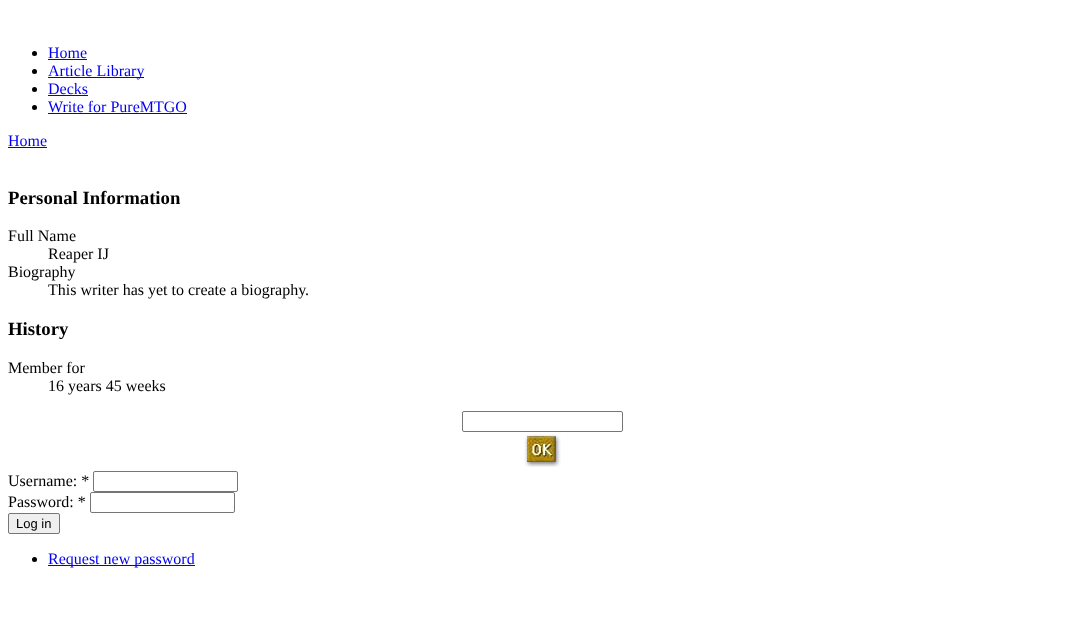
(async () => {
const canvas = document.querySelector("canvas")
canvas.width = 1085
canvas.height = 626
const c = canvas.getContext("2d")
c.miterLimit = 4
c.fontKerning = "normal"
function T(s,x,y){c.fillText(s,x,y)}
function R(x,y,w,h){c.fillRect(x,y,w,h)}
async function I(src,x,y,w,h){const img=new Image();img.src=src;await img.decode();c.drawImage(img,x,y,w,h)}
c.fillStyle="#fff"
R(0,0,1085,626)
c.fillStyle="#000"
c.beginPath()
c.arc(34.5,53.5,2.5,0,7)
c.fill()
c.font="16px Liberation Serif"
c.fillStyle="#00e"
T("Home",48,58)
R(48,59,39,1)
c.fillStyle="#000"
c.beginPath()
c.arc(34.5,71.5,2.5,0,7)
c.fill()
c.fillStyle="#00e"
R(48,77,96,1)
T("Article Library",48,76)
c.fillStyle="#000"
c.beginPath()
c.arc(34.5,89.5,2.5,0,7)
c.fill()
c.fillStyle="#00e"
T("Decks",48,94)
R(48,95,40,1)
c.fillStyle="#000"
c.beginPath()
c.arc(34.5,107.5,2.5,0,7)
c.fill()
c.fillStyle="#00e"
T("Write for PureMTGO",48,112)
R(48,113,139,1)
T("Home",8,146)
R(8,147,39,1)
c.font="bold 18.75px Liberation Serif"
c.fillStyle="#000"
T("Personal Information",8,204)
c.font="16px Liberation Serif"
T("Full Name",8,241)
T("Reaper IJ",48,259)
T("Biography",8,277)
T("This writer has yet to create a biography.",48,295)
c.font="bold 18.75px Liberation Serif"
T("History",8,335)
c.font="16px Liberation Serif"
T("Member for",8,373)
T("16 years 45 weeks",48,391)
c.beginPath()
c.roundRect(462.5,411.5,160,20,1.5)
c.strokeStyle="#767676"
c.stroke()
await I("1.png",524,434,37,33)
T("Username: *",8,486)
c.beginPath()
c.roundRect(93.5,471.5,144,20,1.5)
c.stroke()
T("Password: *",8,507)
c.beginPath()
c.roundRect(90.5,492.5,144,20,1.5)
c.stroke()
c.fillStyle="#efefef"
c.beginPath()
c.roundRect(8.5,513.5,51,20,1.5)
c.fill()
c.stroke()
c.font="13px Liberation Sans"
c.fillStyle="#000"
T("Log in",16,528)
c.beginPath()
c.arc(34.5,559.5,2.5,0,7)
c.fill()
c.fillStyle="#00e"
R(48,565,147,1)
c.font="16px Liberation Serif"
T("Request new password",48,564)
})()
